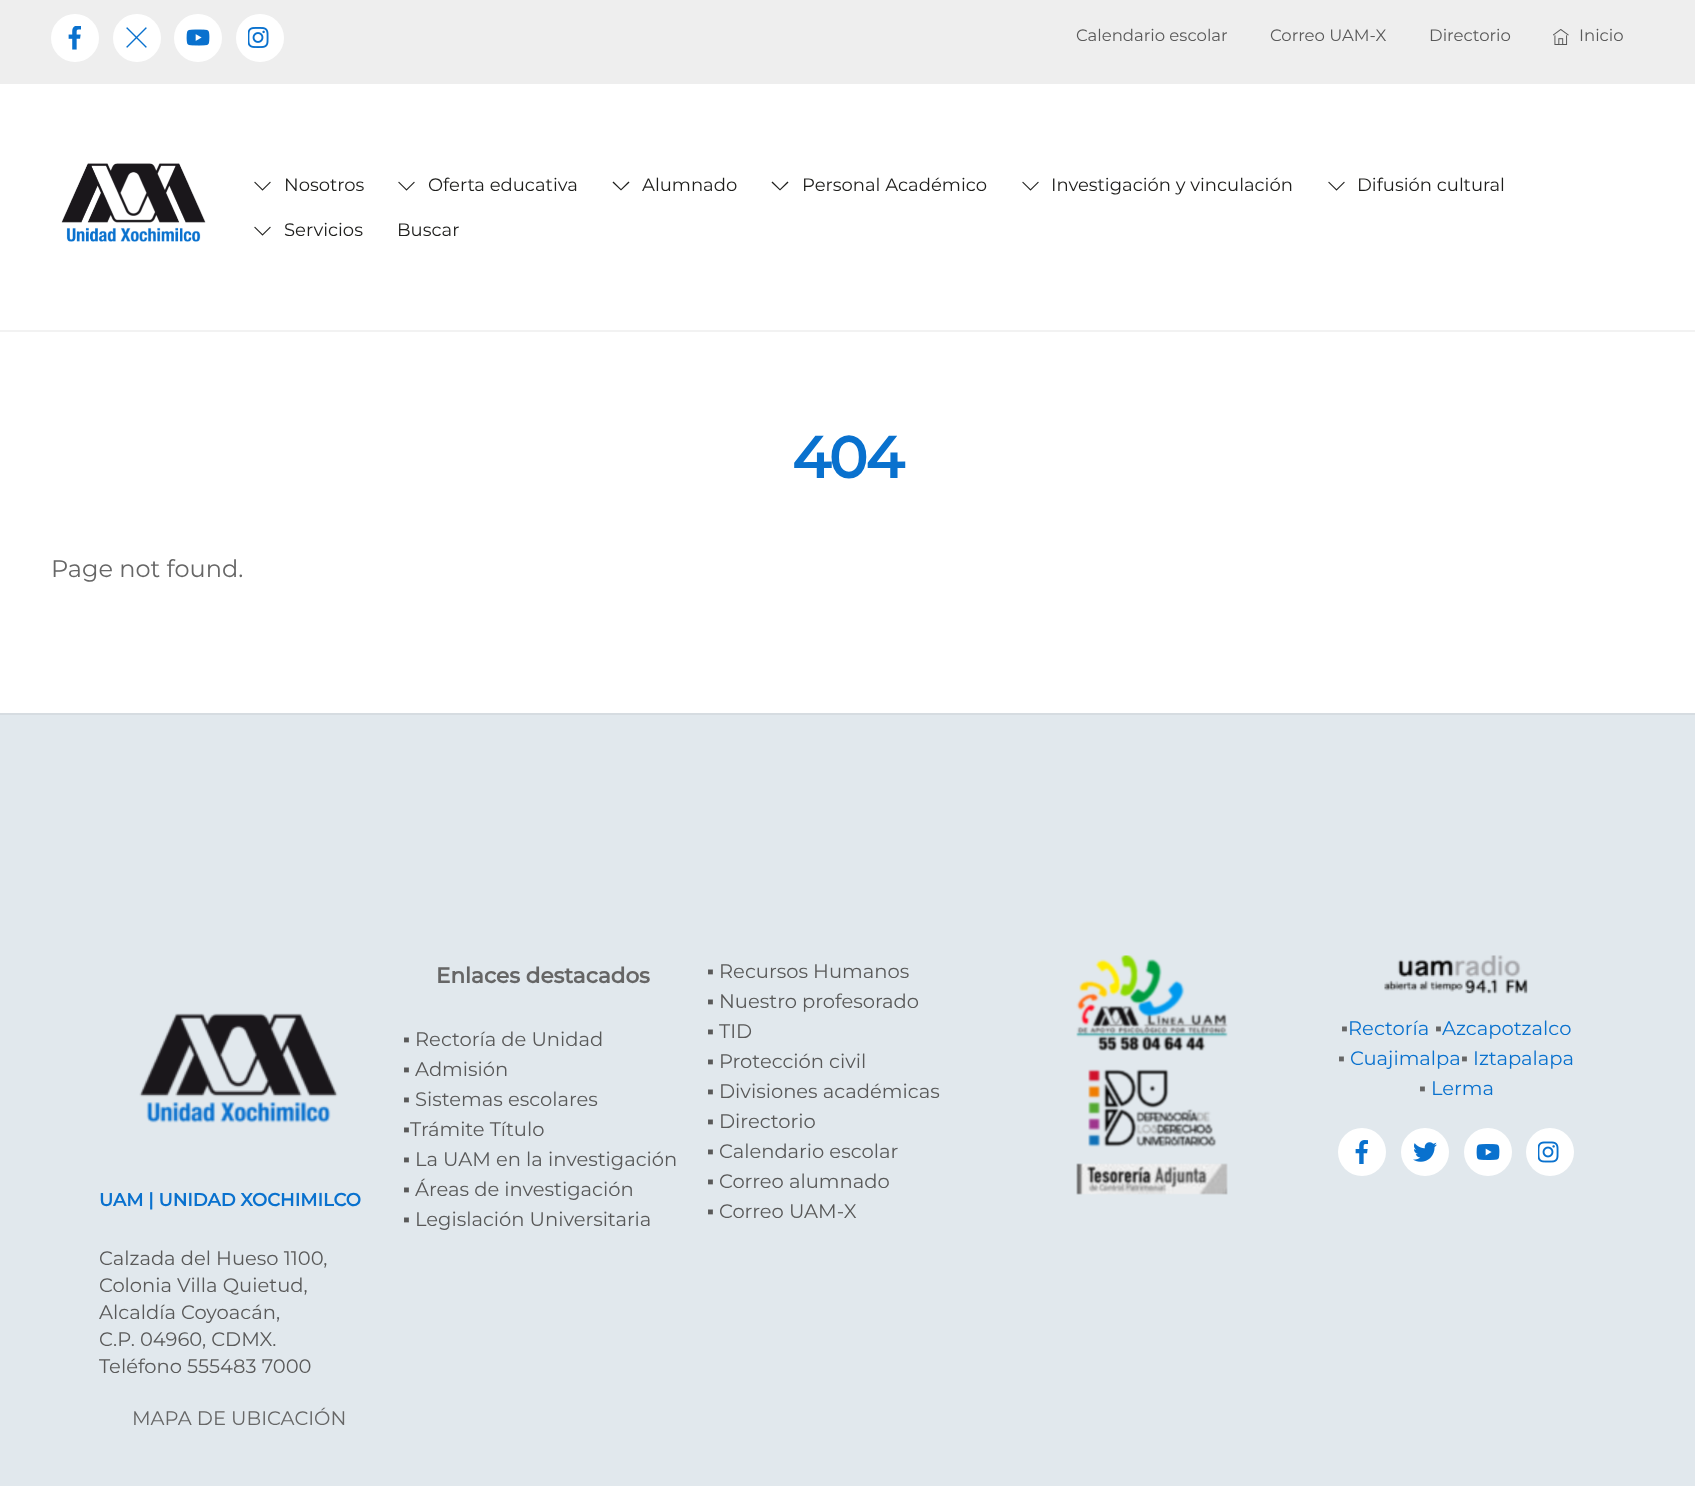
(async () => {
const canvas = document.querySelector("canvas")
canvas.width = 1695
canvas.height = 1486
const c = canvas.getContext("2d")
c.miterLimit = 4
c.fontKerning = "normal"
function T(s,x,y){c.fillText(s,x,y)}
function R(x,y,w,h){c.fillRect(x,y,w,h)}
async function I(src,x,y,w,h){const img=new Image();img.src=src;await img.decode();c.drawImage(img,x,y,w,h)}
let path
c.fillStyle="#fff"
R(0,0,1695,1486)
c.fillStyle="#f2f2f2"
R(0,330,1695,2)
c.fillStyle="#eee"
R(0,0,1695,84)
c.fillStyle="#fff"
c.beginPath()
c.arc(75,38,24,0,7)
c.fill()
await I("1.png",68,26,13,24)
c.beginPath()
c.arc(137,38,24,0,7)
c.fill()
await I("2.png",126,27,21,21)
c.beginPath()
c.arc(198,38,24,0,7)
c.fill()
await I("3.png",186,29,24,17)
c.beginPath()
c.arc(260,38,24,0,7)
c.fill()
await I("4.png",248,27,21,21)
c.font="16.5px Montserrat"
c.fillStyle="#595959"
T("Calendario escolar",1076,41)
T("Correo UAM-X",1270,41)
T("Directorio",1429,41)
await I("5.png",1553,29,16,16)
T("Inicio",1579,41)
await I("6.png",61,163,145,79)
await I("7.png",254,181,17,10)
c.font="18px Montserrat"
c.fillStyle="#1d1d1b"
T("Nosotros",284,191)
await I("7.png",398,181,17,10)
T("Oferta educativa",428,191)
path = new Path2D("M629.5 182.5l-1-1l-7.5 7.5l-7.5-7.5l-1 1l8.5 8z")
c.fill(path)
T("Alumnado",642,191)
path = new Path2D("M788.5 182.5l-1-1l-7.5 7.5l-7.5-7.5l-1 1l8.5 8z")
c.fill(path)
T("Personal Académico",802,191)
await I("7.png",1022,181,17,10)
T("Investigación y vinculación",1051,191)
await I("7.png",1328,181,17,10)
T("Difusión cultural",1357,191)
await I("7.png",254,226,17,10)
T("Servicios",284,236)
T("Buscar",397,236)
c.letterSpacing="-2px"
c.font="bold 58px Montserrat"
c.fillStyle="#0971ce"
T("404",792,478)
c.letterSpacing="0px"
c.font="24px Montserrat"
c.fillStyle="#666"
T("Page not found.",51,577)
c.fillStyle="#e1e8ed"
R(0,715,1695,771)
c.fillStyle="#d6dce1"
R(0,713,1695,2)
c.font="bold 21.5px Montserrat"
c.fillStyle="#666"
T("Enlaces destacados",436,983)
c.font="19.5px Liberation Serif"
c.fillStyle="#595959"
T("▪",403,1046)
c.font="19.5px Montserrat"
T("Rectoría de Unidad",415,1046)
c.font="19.5px Liberation Serif"
T("▪",403,1076)
c.font="19.5px Montserrat"
T("Admisión",415,1076)
c.font="19.5px Liberation Serif"
T("▪",403,1106)
c.font="19.5px Montserrat"
T("Sistemas escolares",415,1106)
c.font="19.5px Liberation Serif"
T("▪",403,1136)
c.font="19.5px Montserrat"
T("Trámite Título",410,1136)
c.font="19.5px Liberation Serif"
T("▪",403,1166)
c.font="19.5px Montserrat"
T("La UAM en la investigación",415,1166)
c.font="19.5px Liberation Serif"
T("▪",403,1196)
c.font="19.5px Montserrat"
T("Áreas de investigación",415,1196)
c.font="19.5px Liberation Serif"
T("▪",403,1226)
c.font="19.5px Montserrat"
T("Legislación Universitaria",415,1226)
c.font="19.5px Liberation Serif"
T("▪",707,978)
c.font="19.5px Montserrat"
T("Recursos Humanos",719,978)
c.font="19.5px Liberation Serif"
T("▪",707,1008)
c.font="19.5px Montserrat"
T("Nuestro profesorado",719,1008)
c.font="19.5px Liberation Serif"
T("▪",707,1038)
c.font="19.5px Montserrat"
T("TID",719,1038)
c.font="19.5px Liberation Serif"
T("▪",707,1068)
c.font="19.5px Montserrat"
T("Protección civil",719,1068)
c.font="19.5px Liberation Serif"
T("▪",707,1098)
c.font="19.5px Montserrat"
T("Divisiones académicas",719,1098)
c.font="19.5px Liberation Serif"
T("▪",707,1128)
c.font="19.5px Montserrat"
T("Directorio",719,1128)
c.font="19.5px Liberation Serif"
T("▪",707,1158)
c.font="19.5px Montserrat"
T("Calendario escolar",719,1158)
c.font="19.5px Liberation Serif"
T("▪",707,1188)
c.font="19.5px Montserrat"
T("Correo alumnado",719,1188)
c.font="19.5px Liberation Serif"
T("▪",707,1218)
c.font="19.5px Montserrat"
T("Correo UAM-X",719,1218)
await I("8.png",1076,955,152,96)
await I("9.png",1088,1069,129,78)
await I("10.png",1076,1163,152,32)
await I("11.png",1384,955,144,39)
c.font="19.5px Liberation Serif"
c.fillStyle="#666"
T("▪",1341,1035)
c.font="19.5px Montserrat"
c.fillStyle="#0971ce"
T("Rectoría",1348,1035)
c.font="19.5px Liberation Serif"
c.fillStyle="#666"
T("▪",1435,1035)
c.font="19.5px Montserrat"
c.fillStyle="#0971ce"
T("Azcapotzalco",1442,1035)
c.font="19.5px Liberation Serif"
c.fillStyle="#666"
T("▪",1338,1065)
c.font="19.5px Montserrat"
c.fillStyle="#0971ce"
T("Cuajimalpa",1350,1065)
c.font="19.5px Liberation Serif"
c.fillStyle="#666"
T("▪",1461,1065)
c.font="19.5px Montserrat"
c.fillStyle="#0971ce"
T("Iztapalapa",1473,1065)
c.font="19.5px Liberation Serif"
c.fillStyle="#666"
T("▪",1419,1095)
c.font="19.5px Montserrat"
c.fillStyle="#0971ce"
T("Lerma",1431,1095)
c.fillStyle="#fff"
c.beginPath()
c.arc(1362,1152,24,0,7)
c.fill()
await I("12.png",1355,1140,13,24)
c.beginPath()
c.arc(1425,1152,24,0,7)
c.fill()
await I("13.png",1413,1142,24,20)
c.beginPath()
c.arc(1488,1152,24,0,7)
c.fill()
await I("14.png",1476,1144,24,16)
c.beginPath()
c.arc(1550,1152,24,0,7)
c.fill()
await I("15.png",1538,1141,21,22)
await I("16.png",139,1013,199,110)
c.font="bold 18px Montserrat"
c.fillStyle="#0971ce"
T("UAM | UNIDAD XOCHIMILCO",99,1206)
c.font="19.5px Montserrat"
c.fillStyle="#595959"
T("Calzada del Hueso 1100,",99,1265)
T("Colonia Villa Quietud,",99,1292)
T("Alcaldía Coyoacán,",99,1319)
T("C.P. 04960, CDMX.",99,1346)
T("Teléfono 555483 7000",99,1373)
c.fillStyle="#666"
T("MAPA DE UBICACIÓN",132,1425)
})()
